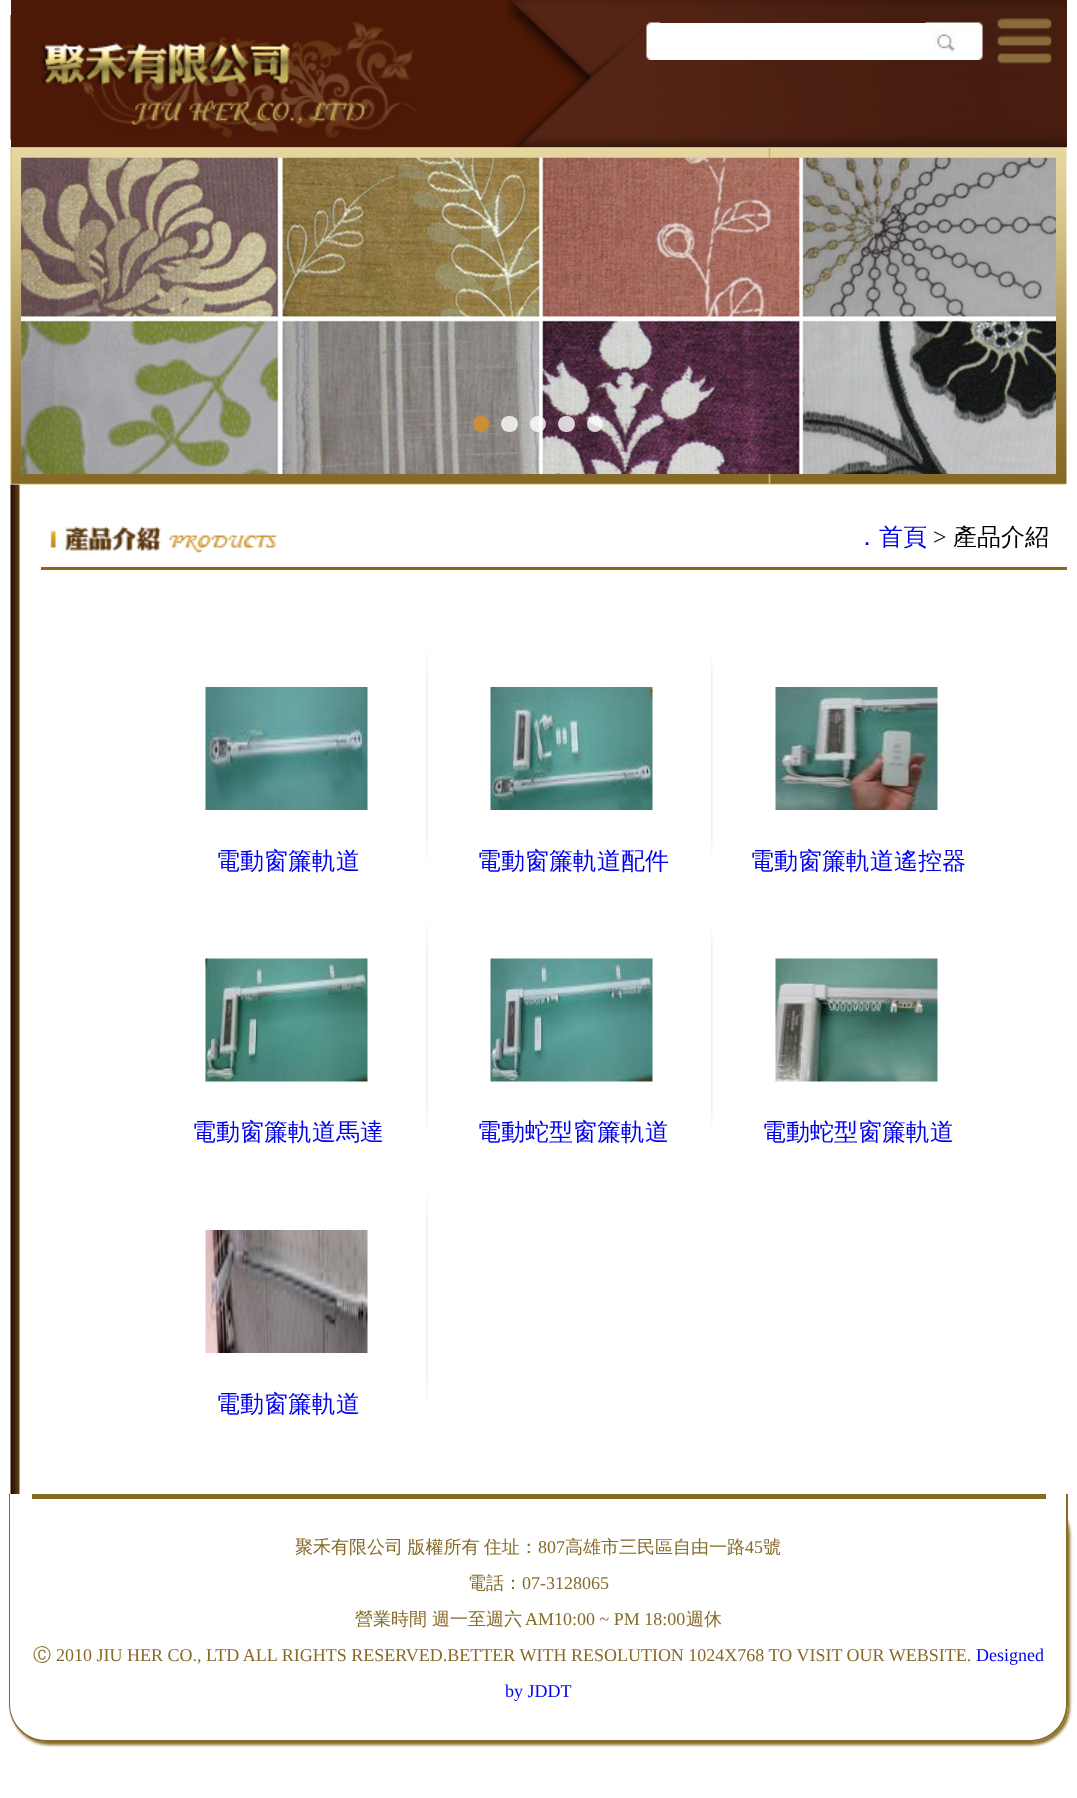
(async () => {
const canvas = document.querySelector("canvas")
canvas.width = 1077
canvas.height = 1798
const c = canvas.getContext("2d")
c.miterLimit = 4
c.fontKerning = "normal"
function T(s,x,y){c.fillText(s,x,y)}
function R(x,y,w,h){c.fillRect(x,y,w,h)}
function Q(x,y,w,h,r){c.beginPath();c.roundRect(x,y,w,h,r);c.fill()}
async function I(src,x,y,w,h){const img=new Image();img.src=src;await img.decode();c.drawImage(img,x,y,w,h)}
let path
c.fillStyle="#fff"
R(0,0,1077,1798)
c.fillStyle="#4e1907"
R(11,0,1056,147)
await I("1.png",505,0,562,147)
await I("2.png",10,15,406,125)
await I("3.png",646,22,14,38)
c.fillStyle="#fff"
R(660,23,266,37)
await I("4.png",925,22,58,38)
await I("5.png",997,18,55,46)
await I("8.png",10,484,10,1010)
await I("6.png",10,147,1057,338)
await I("7.png",21,157,1035,317)
c.fillStyle="#cd8d35"
c.beginPath()
c.arc(481,424,8,0,7)
c.fill()
c.fillStyle="#ffffffcc"
Q(501,416,17,16,8)
c.beginPath()
c.arc(538,424,8,0,7)
c.fill()
Q(558,416,17,16,8)
c.beginPath()
c.arc(595,424,8,0,7)
c.fill()
c.fillStyle="#91641a"
R(41,567,1026,3)
await I("9.png",50,525,227,28)
c.font="500 24px WenQuanYi Zen Hei"
c.fillStyle="#00e"
T("．首頁",855,545)
c.font="24px Liberation Serif"
c.fillStyle="#000"
T(">",933,545)
c.font="500 24px WenQuanYi Zen Hei"
T("產品介紹",953,545)
await I("10.png",426,651,2,210)
await I("11.png",205,687,163,123)
c.fillStyle="#00e"
T("電動窗簾軌道",216,869)
await I("12.png",711,651,2,210)
await I("13.png",490,687,163,123)
T("電動窗簾軌道配件",477,869)
await I("14.png",775,687,163,123)
T("電動窗簾軌道遙控器",750,869)
await I("15.png",426,923,2,209)
await I("16.png",205,958,163,124)
T("電動窗簾軌道馬達",192,1140)
await I("17.png",711,923,2,209)
await I("18.png",490,958,163,124)
T("電動蛇型窗簾軌道",477,1140)
await I("19.png",775,958,163,124)
T("電動蛇型窗簾軌道",762,1140)
await I("10.png",426,1194,2,210)
await I("20.png",205,1230,163,123)
T("電動窗簾軌道",216,1412)
c.save()
path = new Path2D("M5 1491h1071v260h-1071zm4 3h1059v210c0 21-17 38-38 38h-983c-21 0-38-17-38-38z")
c.clip(path,"evenodd")
c.fillStyle="#876a26"
c.filter="blur(1.5px)"
c.beginPath()
c.roundRect(11,1497,1059,248,38)
c.fill()
c.filter="none"
c.restore()
c.fillStyle="#876a26"
path = new Path2D("M9 1494h1059v210c0 21-17 38-38 38h-984c-20 0-37-17-37-38zm1 0h1056v210c0 20-16 36-36 36h-984c-19 0-36-16-36-36z")
c.fill(path,"evenodd")
c.fillStyle="#866925"
R(32,1494,1014,5)
c.wordSpacing="-1px"
c.font="500 18px WenQuanYi Zen Hei"
c.fillStyle="#876a26"
T("聚禾有限公司 版權所有 住址：",295,1553)
c.wordSpacing="0px"
c.font="18px Liberation Serif"
T("807",538,1553)
c.font="500 18px WenQuanYi Zen Hei"
T("高雄市三民區自由一路",565,1553)
c.font="18px Liberation Serif"
T("45",745,1553)
c.font="500 18px WenQuanYi Zen Hei"
T("號",763,1553)
T("電話：",468,1589)
c.font="18px Liberation Serif"
T("07-3128065",522,1589)
c.font="500 18px WenQuanYi Zen Hei"
T("營業時間",355,1625)
T("週一至週六",432,1625)
c.font="18px Liberation Serif"
T("AM10:00 ~ PM 18:00",525,1625)
c.font="500 18px WenQuanYi Zen Hei"
T("週休",686,1625)
T("Ⓒ",33,1661)
c.font="18px Liberation Serif"
T("2010 JIU HER CO., LTD ALL RIGHTS RESERVED.BETTER WITH RESOLUTION 1024X768 TO VISIT OUR WEBSITE.",56,1661)
c.fillStyle="#00e"
T("Designed",976,1661)
T("by JDDT",505,1697)
})()
